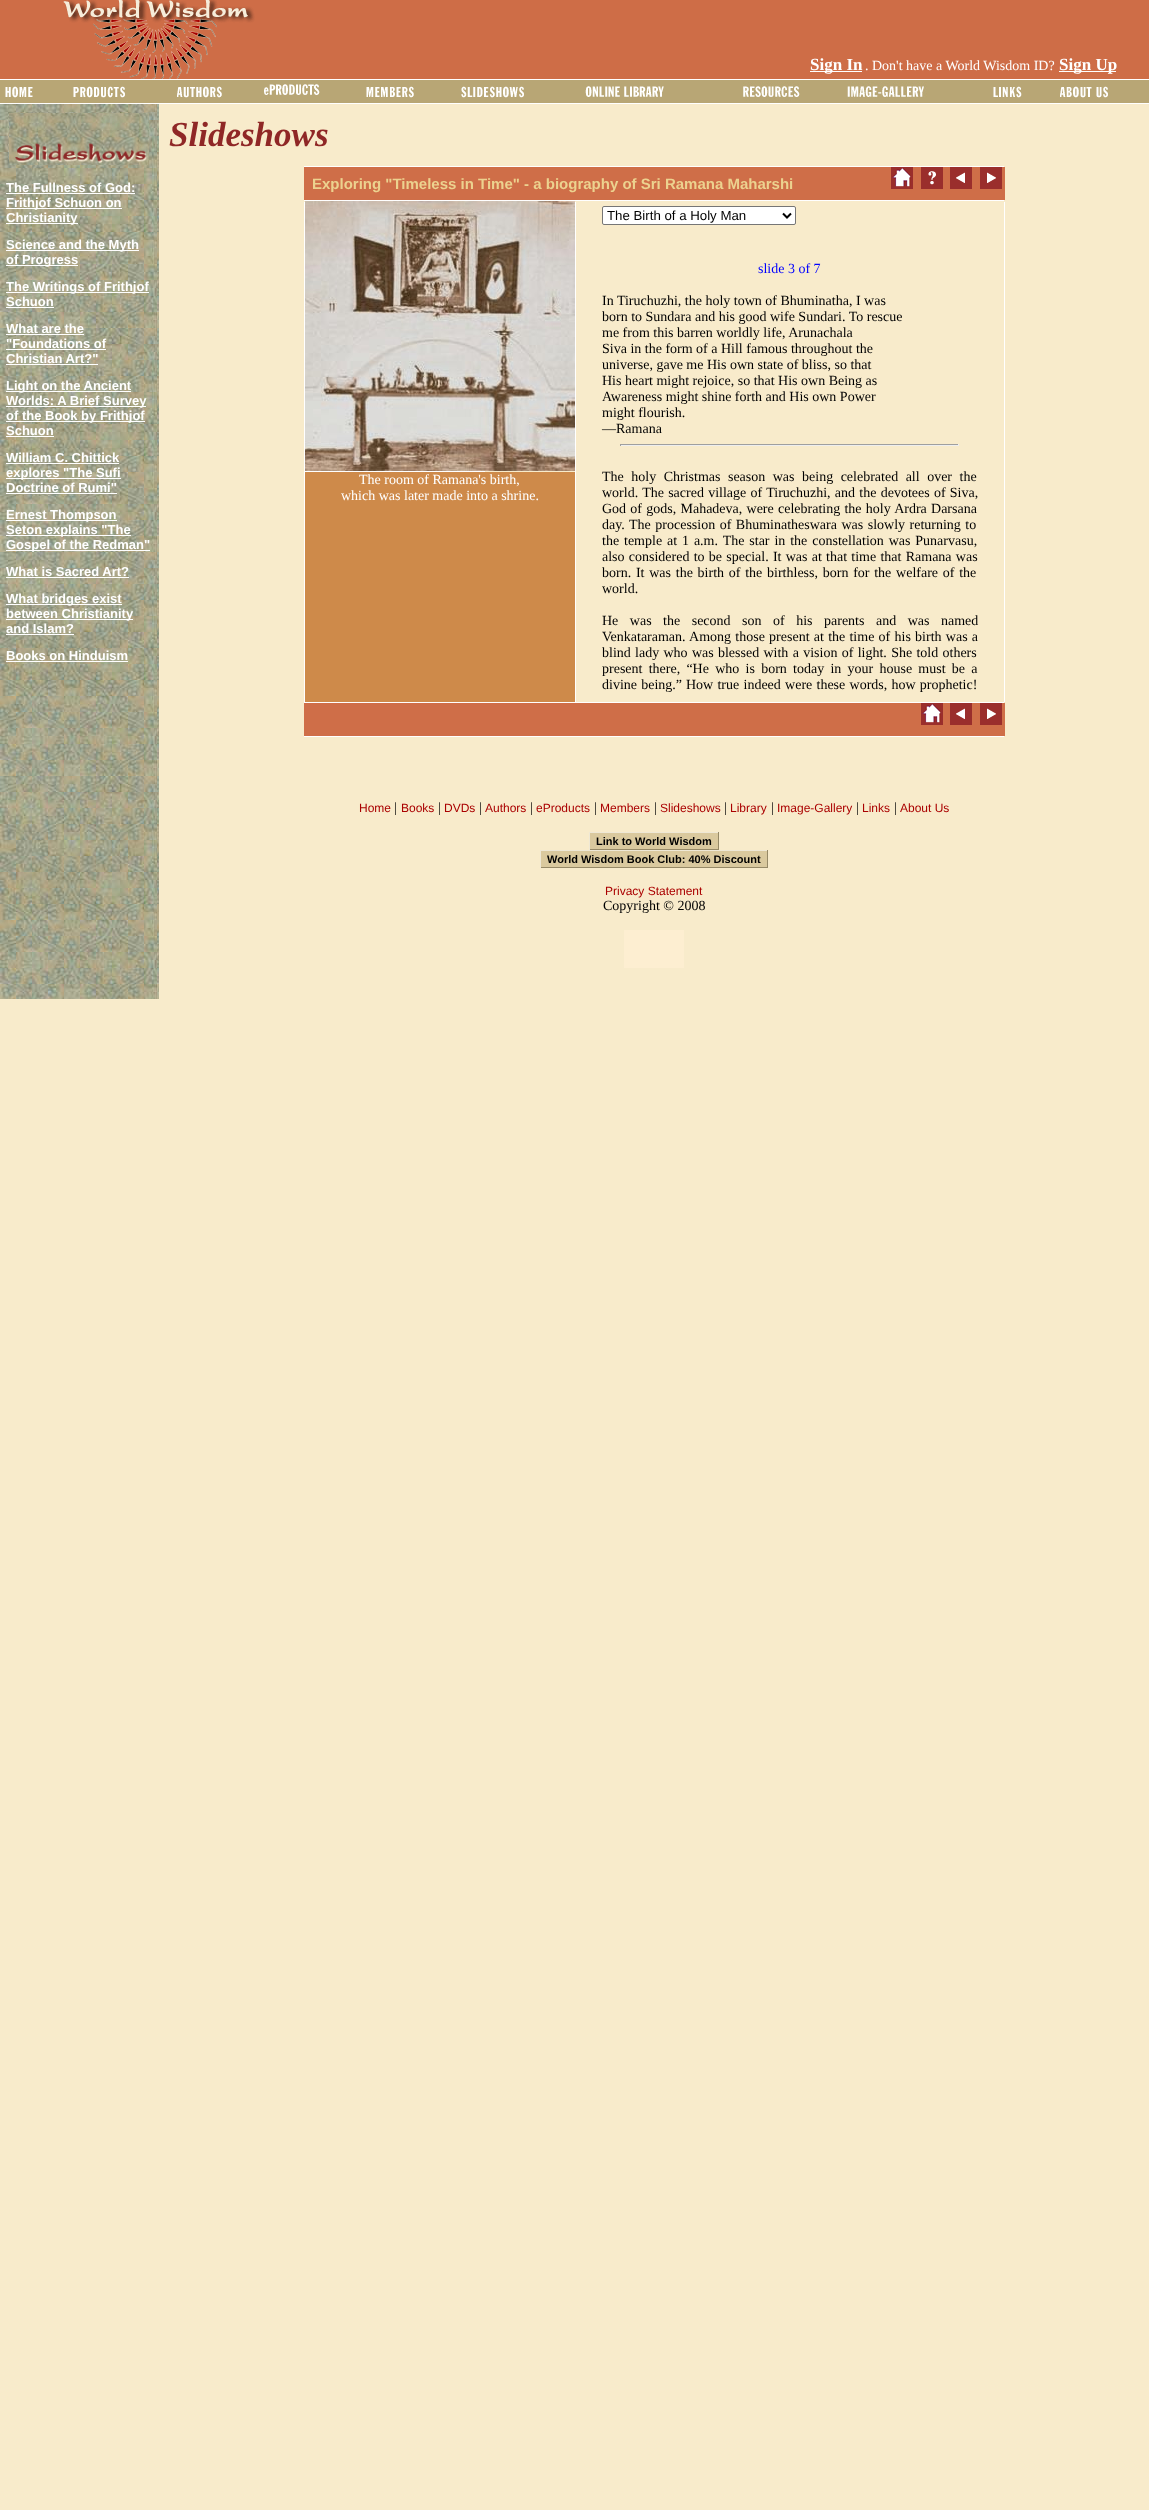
(async () => {
const canvas = document.querySelector("canvas")
canvas.width = 1149
canvas.height = 2510
const c = canvas.getContext("2d")
c.miterLimit = 4
c.fontKerning = "normal"
function T(s,x,y){c.fillText(s,x,y)}
function R(x,y,w,h){c.fillRect(x,y,w,h)}
async function I(src,x,y,w,h){const img=new Image();img.src=src;await img.decode();c.drawImage(img,x,y,w,h)}
let path
c.fillStyle="#f8ebcb"
R(0,0,1149,2510)
c.fillStyle="#ce6d47"
R(0,0,1149,79)
await I("1.png",63,0,192,79)
c.fillStyle="#fff"
R(810,71,52,1)
c.font="bold 17px Liberation Serif"
T("Sign In",810,70)
c.font="14px Liberation Serif"
T(". Don't have a World Wisdom ID?",865,70)
R(1059,71,57,1)
c.font="bold 17px Liberation Serif"
T("Sign Up",1059,70)
c.fillStyle="#b8a675"
R(0,80,1149,23)
c.fillStyle="#fff"
R(0,79,1149,1)
R(0,103,1149,1)
await I("2.png",5,86,28,12)
await I("3.png",73,86,52,12)
await I("4.png",177,86,45,12)
await I("5.png",264,84,56,11)
await I("6.png",366,86,48,12)
await I("7.png",461,86,63,12)
await I("8.png",585,86,79,11)
await I("9.png",743,82,57,19)
await I("10.png",847,82,80,16)
await I("11.png",993,86,29,12)
await I("12.png",1060,86,48,12)
await I("13.png",0,104,159,895)
await I("14.png",9,113,140,52)
c.font="bold 13px Liberation Sans"
T("The Fullness of God:",6,192)
R(6,193,129,1)
R(6,208,116,1)
T("Frithjof Schuon on",6,207)
R(6,223,72,1)
T("Christianity",6,222)
R(6,250,133,1)
T("Science and the Myth",6,249)
R(6,265,72,1)
T("of Progress",6,264)
R(6,292,143,1)
T("The Writings of Frithjof",6,291)
T("Schuon",6,306)
R(6,307,48,1)
T("What are the",6,333)
R(6,334,78,1)
T("\"Foundations of",6,348)
R(6,349,100,1)
T("Christian Art?\"",6,363)
R(6,364,92,1)
R(6,391,125,1)
T("Light on the Ancient",6,390)
R(6,406,140,1)
T("Worlds: A Brief Survey",6,405)
R(6,421,139,1)
T("of the Book by Frithjof",6,420)
T("Schuon",6,435)
R(6,436,48,1)
T("William C. Chittick",6,462)
R(6,463,113,1)
R(6,478,115,1)
T("explores \"The Sufi",6,477)
T("Doctrine of Rumi\"",6,492)
R(6,493,111,1)
R(6,520,111,1)
T("Ernest Thompson",6,519)
R(6,535,125,1)
T("Seton explains \"The",6,534)
R(6,550,144,1)
T("Gospel of the Redman\"",6,549)
T("What is Sacred Art?",6,576)
R(6,577,123,1)
R(6,604,116,1)
T("What bridges exist",6,603)
R(6,619,127,1)
T("between Christianity",6,618)
T("and Islam?",6,633)
R(6,634,68,1)
T("Books on Hinduism",6,660)
R(6,661,122,1)
c.font="italic bold 35px Liberation Serif"
c.fillStyle="#8f2726"
T("Slideshows",169,146)
c.fillStyle="#fff"
R(304,166,700,1)
c.fillStyle="#cf6e48"
R(304,167,701,33)
c.font="bold 15px Liberation Sans"
c.fillStyle="#ecd28f"
T("Exploring \"Timeless in Time\" - a biography of Sri Ramana Maharshi",312,189)
await I("15.png",891,167,22,22)
await I("16.png",921,167,22,22)
await I("17.png",950,167,22,22)
await I("18.png",980,167,22,22)
c.fillStyle="#fff"
R(304,200,700,1)
R(304,202,1,500)
await I("19.png",305,201,270,270)
R(305,471,180,1)
c.fillStyle="#ce8a4a"
R(305,472,270,230)
c.font="14px Liberation Serif"
c.fillStyle="#fff"
T("The room of Ramana's birth,",359,484)
T("which was later made into a shrine.",341,500)
R(575,202,1,500)
c.beginPath()
c.roundRect(602.5,206.5,193,18,1.5)
c.fill()
c.strokeStyle="#767676"
c.stroke()
path = new Path2D("M783 213.5l4 4l4-4")
c.strokeStyle="#000"
c.lineWidth=2
c.stroke(path)
c.font="13.25px Liberation Sans"
c.fillStyle="#000"
T("The Birth of a Holy Man",607,220)
c.font="14px Liberation Serif"
c.fillStyle="#00f"
T("slide 3 of 7",758,273)
c.fillStyle="#000"
T("In Tiruchuzhi, the holy town of Bhuminatha, I was",602,305)
T("born to Sundara and his good wife Sundari. To rescue",602,321)
T("me from this barren worldly life, Arunachala",602,337)
T("Siva in the form of a Hill famous throughout the",602,353)
T("universe, gave me His own state of bliss, so that",602,369)
T("His heart might rejoice, so that His own Being as",602,385)
T("Awareness might shine forth and His own Power",602,401)
T("might flourish.",602,417)
T("—Ramana",602,433)
c.fillStyle="#9f9f9f"
R(620,444,339,1)
c.fillStyle="#eee"
R(958,444,1,2)
R(620,445,339,1)
c.fillStyle="#9f9f9f"
R(620,444,1,2)
c.wordSpacing="4px"
c.fillStyle="#000"
T("The holy Christmas season was being celebrated all over the",602,481)
c.wordSpacing="0.75px"
T("world. The sacred village of Tiruchuzhi, and the devotees of Siva,",602,497)
T("God of gods, Mahadeva, were celebrating the holy Ardra Darsana",602,513)
c.wordSpacing="1px"
T("day. The procession of Bhuminatheswara was slowly returning to",602,529)
c.wordSpacing="1.4px"
T("the temple at 1 a.m. The star in the constellation was Punarvasu,",602,545)
c.wordSpacing="0.75px"
T("also considered to be special. It was at that time that Ramana was",602,561)
c.wordSpacing="1.25px"
T("born. It was the birth of the birthless, born for the welfare of the",602,577)
c.wordSpacing="0px"
T("world.",602,593)
c.wordSpacing="8px"
T("He was the second son of his parents and was named",602,625)
c.wordSpacing="0.75px"
T("Venkataraman. Among those present at the time of his birth was a",602,641)
c.wordSpacing="0.8px"
T("blind lady who was blessed with a vision of light. She told others",602,657)
c.wordSpacing="2.75px"
T("present there, “He who is born today in your house must be a",602,673)
c.wordSpacing="0.75px"
T("divine being.”",602,689)
T("How true indeed were these words, how prophetic!",686,689)
c.fillStyle="#fff"
R(1004,202,1,500)
R(304,702,700,1)
c.fillStyle="#cf6e48"
R(304,703,701,33)
await I("15.png",921,703,22,22)
await I("17.png",950,703,22,22)
await I("18.png",980,703,22,22)
c.fillStyle="#fff"
R(304,736,700,1)
c.wordSpacing="0px"
c.font="12px Liberation Sans"
c.fillStyle="#a00"
T("Home",359,812)
c.font="14px Liberation Serif"
c.fillStyle="#000"
T("|",394,812)
c.font="12px Liberation Sans"
c.fillStyle="#a00"
T("Books",401,812)
c.font="14px Liberation Serif"
c.fillStyle="#000"
T("|",438,812)
c.font="12px Liberation Sans"
c.fillStyle="#a00"
T("DVDs",444,812)
c.font="14px Liberation Serif"
c.fillStyle="#000"
T("|",479,812)
c.font="12px Liberation Sans"
c.fillStyle="#a00"
T("Authors",485,812)
c.font="14px Liberation Serif"
c.fillStyle="#000"
T("|",530,812)
c.font="12px Liberation Sans"
c.fillStyle="#a00"
T("eProducts",536,812)
c.font="14px Liberation Serif"
c.fillStyle="#000"
T("|",594,812)
c.font="12px Liberation Sans"
c.fillStyle="#a00"
T("Members",600,812)
c.font="14px Liberation Serif"
c.fillStyle="#000"
T("|",654,812)
c.font="12px Liberation Sans"
c.fillStyle="#a00"
T("Slideshows",660,812)
c.font="14px Liberation Serif"
c.fillStyle="#000"
T("|",724,812)
c.font="12px Liberation Sans"
c.fillStyle="#a00"
T("Library",730,812)
c.font="14px Liberation Serif"
c.fillStyle="#000"
T("|",771,812)
c.font="12px Liberation Sans"
c.fillStyle="#a00"
T("Image-Gallery",777,812)
c.font="14px Liberation Serif"
c.fillStyle="#000"
T("|",856,812)
c.font="12px Liberation Sans"
c.fillStyle="#a00"
T("Links",862,812)
c.font="14px Liberation Serif"
c.fillStyle="#000"
T("|",894,812)
c.font="12px Liberation Sans"
c.fillStyle="#a00"
T("About Us",900,812)
c.fillStyle="#dac99e"
R(590,833,128,16)
c.fillStyle="#efe8d5"
R(589,832,130,1)
c.fillStyle="#968967"
R(718,832,1,18)
R(589,849,130,1)
c.fillStyle="#efe8d5"
R(589,832,1,18)
c.font="bold 11px Liberation Sans"
c.fillStyle="#000"
T("Link to World Wisdom",596,845)
c.fillStyle="#dac99e"
R(541,851,226,16)
c.fillStyle="#efe8d5"
R(540,850,228,1)
c.fillStyle="#968967"
R(767,850,1,18)
R(540,867,228,1)
c.fillStyle="#efe8d5"
R(540,850,1,18)
c.fillStyle="#000"
T("World Wisdom Book Club: 40% Discount",547,863)
c.font="12px Liberation Sans"
c.fillStyle="#a00"
T("Privacy Statement",605,895)
c.font="14px Liberation Serif"
c.fillStyle="#000"
T("Copyright © 2008",603,910)
c.fillStyle="#fdeed1"
R(624,930,60,38)
})()
